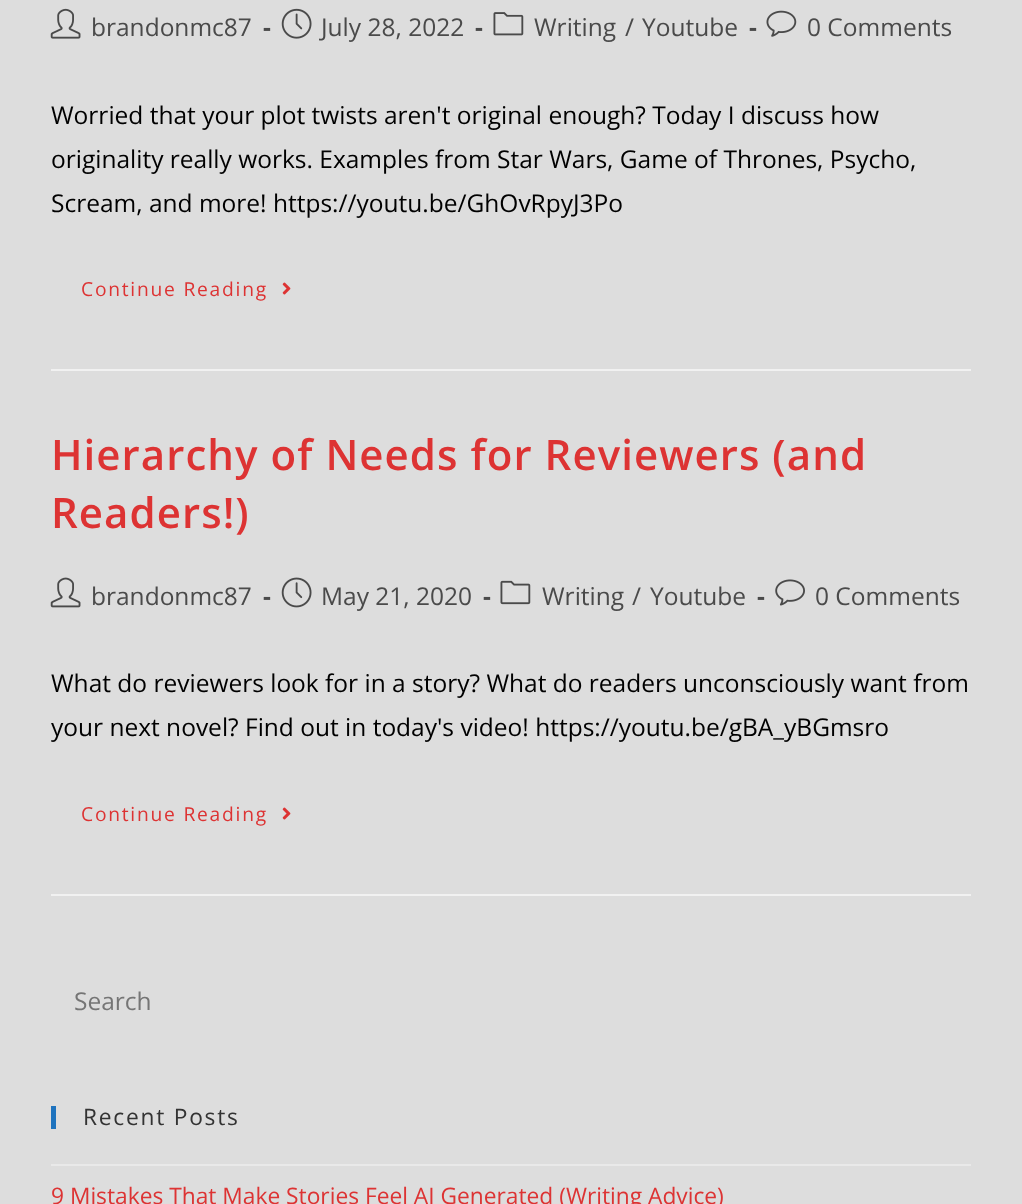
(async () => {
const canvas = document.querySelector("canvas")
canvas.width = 1022
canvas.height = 1204
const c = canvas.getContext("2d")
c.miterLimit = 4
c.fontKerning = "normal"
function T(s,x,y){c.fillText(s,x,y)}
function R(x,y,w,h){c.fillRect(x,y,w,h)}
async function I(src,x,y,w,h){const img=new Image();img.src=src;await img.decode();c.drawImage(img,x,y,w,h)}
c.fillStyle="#ddd"
R(0,0,1022,1204)
c.fillStyle="#f1f1f1"
R(51,369,920,2)
await I("1.png",50,8,31,31)
c.font="24.5px Open Sans"
c.fillStyle="#4a4a4a"
T("brandonmc87",91,36)
c.font="bold 24.5px Open Sans"
T("-",263,36)
await I("2.png",281,8,31,31)
c.font="24.5px Open Sans"
T("July 28, 2022",321,36)
c.font="bold 24.5px Open Sans"
T("-",475,36)
await I("3.png",493,12,31,24)
c.font="24.5px Open Sans"
T("Writing",534,36)
T("/",625,36)
T("Youtube",642,36)
c.font="bold 24.5px Open Sans"
T("-",749,36)
await I("4.png",766,10,31,27)
c.font="24.5px Open Sans"
T("0 Comments",807,36)
c.fillStyle="#000"
T("Worried that your plot twists aren't original enough? Today I discuss how",51,124)
T("originality really works. Examples from Star Wars, Game of Thrones, Psycho,",51,168)
T("Scream, and more! https://youtu.be/GhOvRpyJ3Po",51,212)
c.letterSpacing="1.75px"
c.font="19.25px Open Sans"
c.fillStyle="#d33"
T("Continue Reading",81,296)
await I("5.png",282,282,9,13)
c.fillStyle="#f1f1f1"
R(51,894,920,2)
c.letterSpacing="1.05px"
c.font="600 42px Open Sans"
c.fillStyle="#d33"
T("Hierarchy of Needs for Reviewers (and",51,470)
T("Readers!)",51,528)
await I("6.png",50,577,31,31)
c.letterSpacing="0px"
c.font="24.5px Open Sans"
c.fillStyle="#4a4a4a"
T("brandonmc87",91,605)
c.font="bold 24.5px Open Sans"
T("-",263,605)
await I("7.png",281,577,31,31)
c.font="24.5px Open Sans"
T("May 21, 2020",321,605)
c.font="bold 24.5px Open Sans"
T("-",483,605)
await I("8.png",500,580,31,25)
c.font="24.5px Open Sans"
T("Writing",542,605)
T("/",632,605)
T("Youtube",650,605)
c.font="bold 24.5px Open Sans"
T("-",757,605)
await I("9.png",775,579,30,27)
c.font="24.5px Open Sans"
T("0 Comments",815,605)
c.fillStyle="#000"
T("What do reviewers look for in a story? What do readers unconsciously want from",51,692)
T("your next novel? Find out in today's video! https://youtu.be/gBA_yBGmsro",51,736)
c.letterSpacing="1.75px"
c.font="19.25px Open Sans"
c.fillStyle="#d33"
T("Continue Reading",81,821)
await I("5.png",282,807,9,13)
c.letterSpacing="0px"
c.font="24.5px Open Sans"
c.fillStyle="#757575"
T("Search",74,1010)
c.fillStyle="#1e73be"
R(51,1106,5,23)
c.letterSpacing="1.75px"
c.font="22.75px Open Sans"
c.fillStyle="#333"
T("Recent Posts",83,1125)
c.fillStyle="#e9e9e9"
R(51,1164,920,2)
c.letterSpacing="0px"
c.fillStyle="#d33"
T("9 Mistakes That Make Stories Feel AI Generated (Writing Advice)",51,1204)
})()
